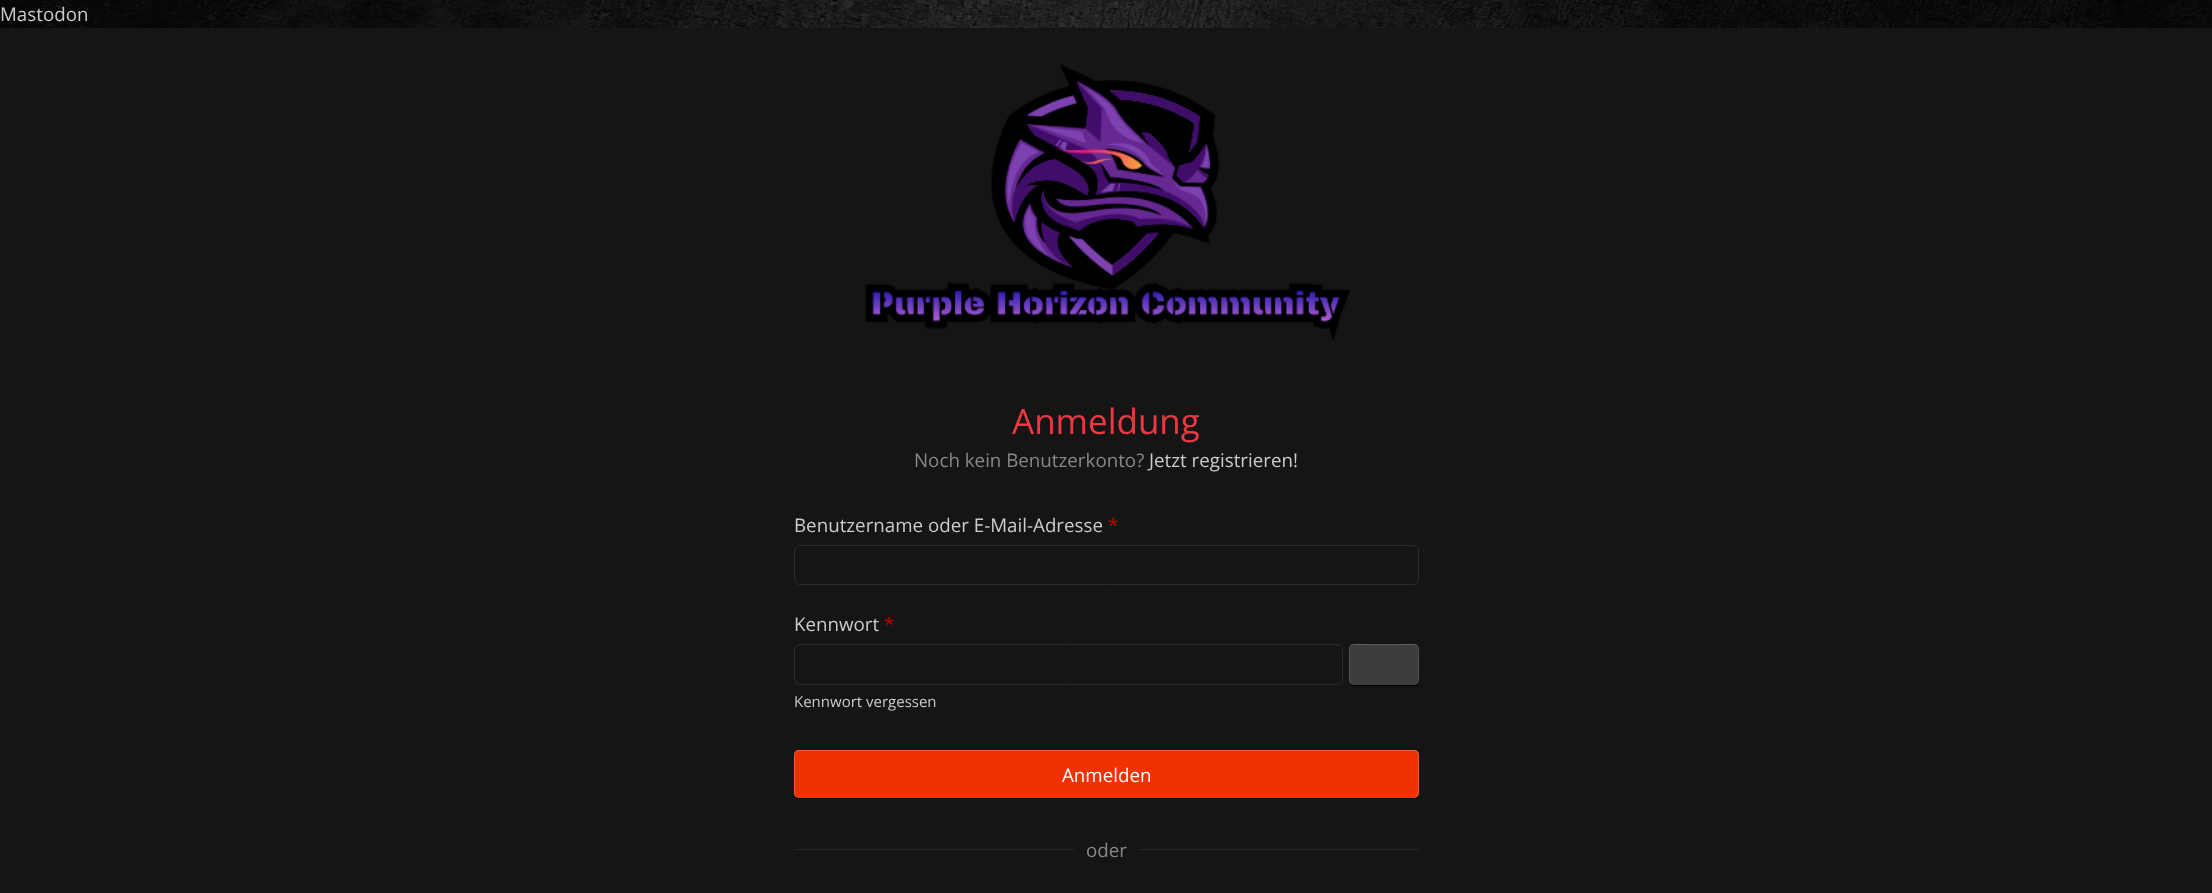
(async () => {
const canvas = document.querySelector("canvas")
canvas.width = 2212
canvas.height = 893
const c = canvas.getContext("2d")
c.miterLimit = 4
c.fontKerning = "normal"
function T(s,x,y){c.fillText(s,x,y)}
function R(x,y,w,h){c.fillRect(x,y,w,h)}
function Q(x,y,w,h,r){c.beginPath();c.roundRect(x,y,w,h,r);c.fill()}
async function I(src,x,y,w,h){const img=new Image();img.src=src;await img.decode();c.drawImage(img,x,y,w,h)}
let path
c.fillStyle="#fff"
R(0,0,2212,893)
await I("1.png",0,0,2212,28)
c.font="18.75px Open Sans"
c.fillStyle="#ccc"
T("Mastodon",0,21)
c.fillStyle="#151515"
R(0,28,2212,865)
await I("2.png",865,64,485,277)
c.font="35px Open Sans"
c.fillStyle="#ee3841"
T("Anmeldung",1012,434)
c.font="18.75px Open Sans"
c.fillStyle="#888"
T("Noch kein Benutzerkonto?",914,467)
c.fillStyle="#ccc"
T("Jetzt registrieren!",1149,467)
T("Benutzername oder E-Mail-Adresse",794,532)
c.fillStyle="#cc0001"
T("*",1108,532)
c.beginPath()
c.roundRect(794.5,545.5,624,39,5.5)
c.strokeStyle="#2b2b2b"
c.stroke()
c.fillStyle="#ccc"
T("Kennwort",794,631)
c.fillStyle="#cc0001"
T("*",884,631)
c.beginPath()
c.roundRect(794.5,644.5,548,40,5.5)
c.stroke()
c.fillStyle="#000"
path = new Path2D("M1349 682l1 2l3 2h62l3-1l1-3v-34v32c0 3-2 5-5 5h-60c-2 0-4-1-5-3z")
c.fill(path)
c.fillStyle="#3d3d3d"
Q(1349,644,70,41,5)
c.fillStyle="#ffffff1a"
path = new Path2D("M1354 644c-3 0-5 2-5 5v31c0 3 2 5 5 5h1c-3 0-5-2-5-5v-31c0-3 2-5 5-5z")
c.fill(path)
c.fillStyle="#505050"
path = new Path2D("M1412 685c7 0 7-4 7-10v-21c0-6 0-10-7-10c3 0 6 2 6 5v31c0 3-3 5-6 5z")
c.fill(path)
c.fillStyle="#ffffff26"
path = new Path2D("M1354 645h60c3 0 5 2 5 5c0-8-9-6-15-6h-40c-6 0-15-2-15 6c0-3 2-5 5-5z")
c.fill(path)
c.font="15px Open Sans"
c.fillStyle="#ccc"
T("Kennwort vergessen",794,707)
c.fillStyle="#000"
path = new Path2D("M794 794c0 3 2 5 5 5h615c3 0 5-2 5-5v-40v38c0 3-2 6-5 6h-615c-2 0-4-2-5-4z")
c.fill(path)
c.fillStyle="#f03100"
Q(794,750,625,48,5)
c.fillStyle="#ffffff33"
path = new Path2D("M799 750c-3 0-5 2-5 5v38c0 3 2 5 5 5h1c-3 0-5-3-5-6v-37c0-3 2-5 5-5z")
c.fill(path)
path = new Path2D("M1412 798c8 0 7-4 7-11v-26c0-7 1-11-7-11c3 0 6 2 6 5v37c0 3-3 6-6 6z")
c.fill(path)
path = new Path2D("M799 751h615c3 0 5 2 5 5v-1c0-3-2-5-5-5h-615c-3 0-5 2-5 5v1c0-3 2-5 5-5z")
c.fill(path)
c.font="18.75px Open Sans"
c.fillStyle="#fff"
T("Anmelden",1062,782)
c.fillStyle="#262626"
R(794,849,280,1)
c.fillStyle="#888"
T("oder",1086,857)
c.fillStyle="#262626"
R(1139,849,280,1)
})()
